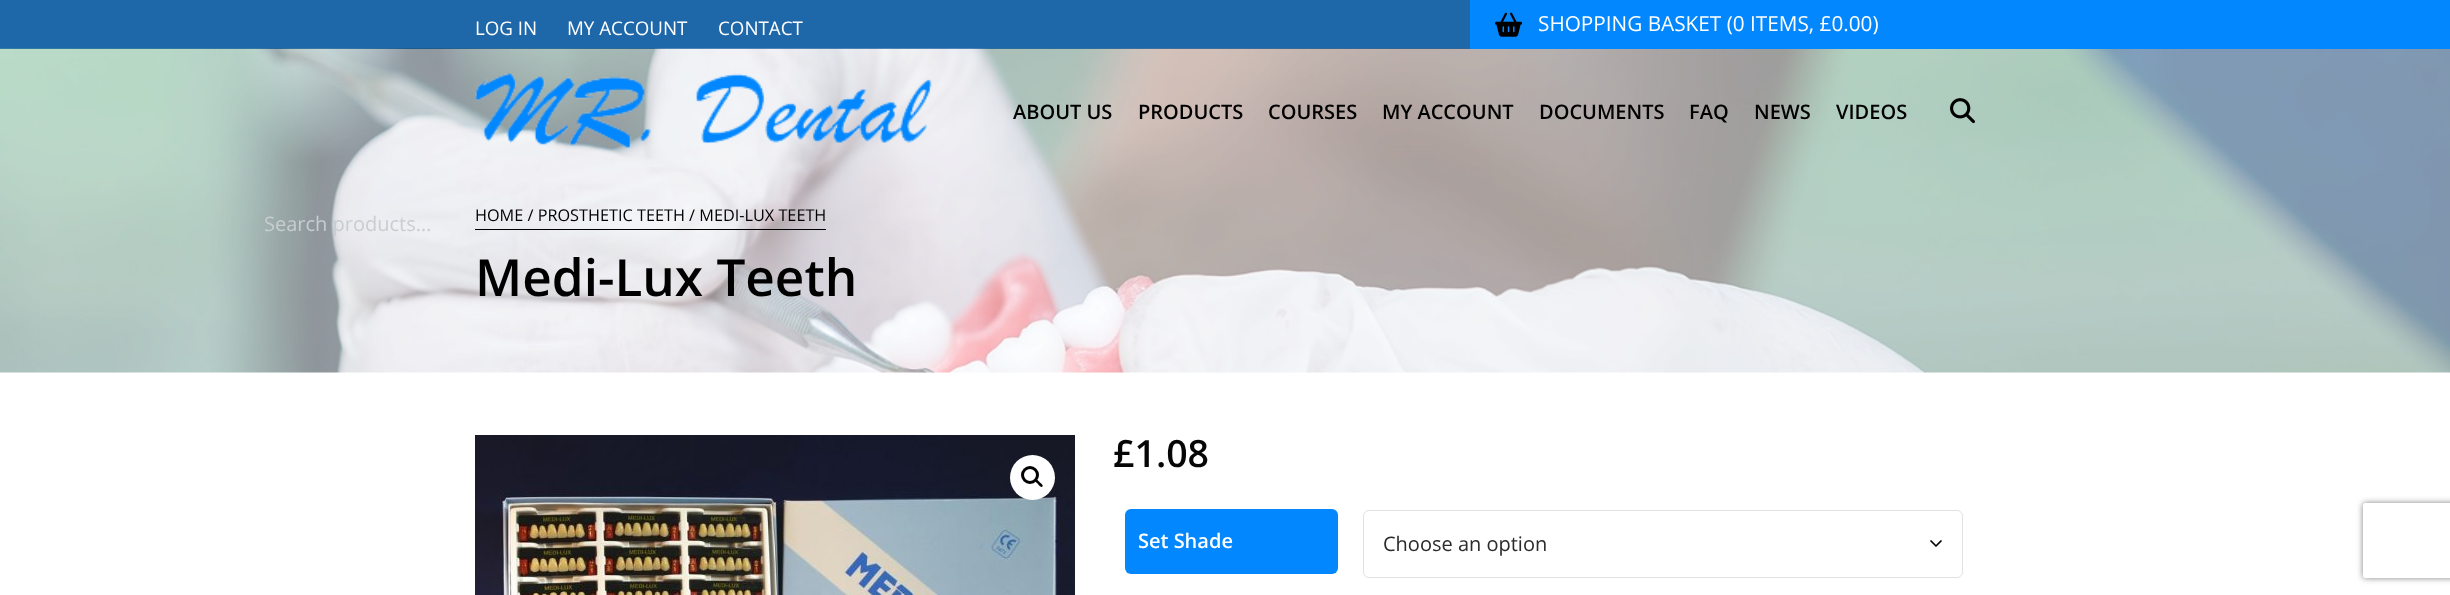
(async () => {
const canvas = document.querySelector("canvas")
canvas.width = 2450
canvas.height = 595
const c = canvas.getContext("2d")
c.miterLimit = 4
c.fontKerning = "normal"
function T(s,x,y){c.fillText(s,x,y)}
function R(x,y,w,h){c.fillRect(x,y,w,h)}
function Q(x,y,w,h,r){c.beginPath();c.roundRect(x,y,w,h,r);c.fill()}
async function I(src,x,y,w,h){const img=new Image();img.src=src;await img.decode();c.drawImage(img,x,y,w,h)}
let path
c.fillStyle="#fff"
R(0,0,2450,595)
c.fillStyle="#1e67a9"
R(0,0,1470,49)
await I("4.png",0,48,2450,325)
c.font="20px Open Sans"
c.fillStyle="#c7cdd0"
T("Search products…",264,231)
c.font="18.75px Open Sans"
c.fillStyle="#fff"
T("LOG IN",475,35)
T("MY ACCOUNT",567,35)
T("CONTACT",718,35)
c.fillStyle="#0287ff"
R(1470,0,980,49)
await I("1.png",1495,12,28,25)
c.font="20.75px Open Sans"
c.fillStyle="#fff"
T("SHOPPING BASKET (0 ITEMS, £0.00)",1538,31)
await I("2.png",475,73,457,76)
c.font="600 20px Open Sans"
c.fillStyle="#000"
T("ABOUT US",1013,119)
T("PRODUCTS",1138,119)
T("COURSES",1268,119)
T("MY ACCOUNT",1382,119)
T("DOCUMENTS",1539,119)
T("FAQ",1689,119)
T("NEWS",1754,119)
T("VIDEOS",1836,119)
await I("3.png",1950,98,25,26)
R(475,229,351,1)
c.font="16.25px Open Sans"
T("HOME / PROSTHETIC TEETH / MEDI-LUX TEETH",475,221)
c.font="600 51.25px Open Sans"
T("Medi-Lux Teeth",475,296)
await I("5.png",475,435,600,160)
c.fillStyle="#fff"
c.beginPath()
c.arc(1032.5,477.5,22.5,0,7)
c.fill()
c.beginPath()
c.arc(1030,475,7.5,0,7)
c.strokeStyle="#000"
c.lineWidth=3
c.stroke()
c.fillStyle="#000"
path = new Path2D("M1035 479.5c1.5-1.5 4 2 4.5 2.5c1 1 4 3 3 4.5c-1.5 1.5-4-1.5-4.5-2.5c-1-1-4-3-3-4.5z")
c.fill(path)
c.font="600 37.5px Open Sans"
c.fillStyle="#070606"
T("£1.08",1113,467)
c.fillStyle="#0287ff"
Q(1125,509,213,65,6)
c.font="600 20px Open Sans"
c.fillStyle="#fff"
T("Set Shade",1138,548)
path = new Path2D("M1931 541l5 5l5-5")
c.lineWidth=1.7
c.lineCap="round"
c.lineJoin="round"
c.stroke(path)
c.beginPath()
c.roundRect(1363.5,510.5,599,67,5.5)
c.strokeStyle="#e1e1e2"
c.lineWidth=1
c.lineJoin="miter"
c.stroke()
c.font="20px Open Sans"
c.fillStyle="#2b2b2b"
T("Choose an option",1383,551)
c.save()
path = new Path2D("M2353 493h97v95h-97zm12.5 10h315c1.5 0 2.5 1 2.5 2.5v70c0 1.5-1 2.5-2.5 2.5h-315c-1.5 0-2.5-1-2.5-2.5v-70c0-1.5 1-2.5 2.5-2.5z")
c.clip(path,"evenodd")
c.fillStyle="#808080"
c.filter="blur(3px)"
c.beginPath()
c.roundRect(2363,503,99,75,2.5)
c.fill()
c.filter="none"
c.restore()
})()
